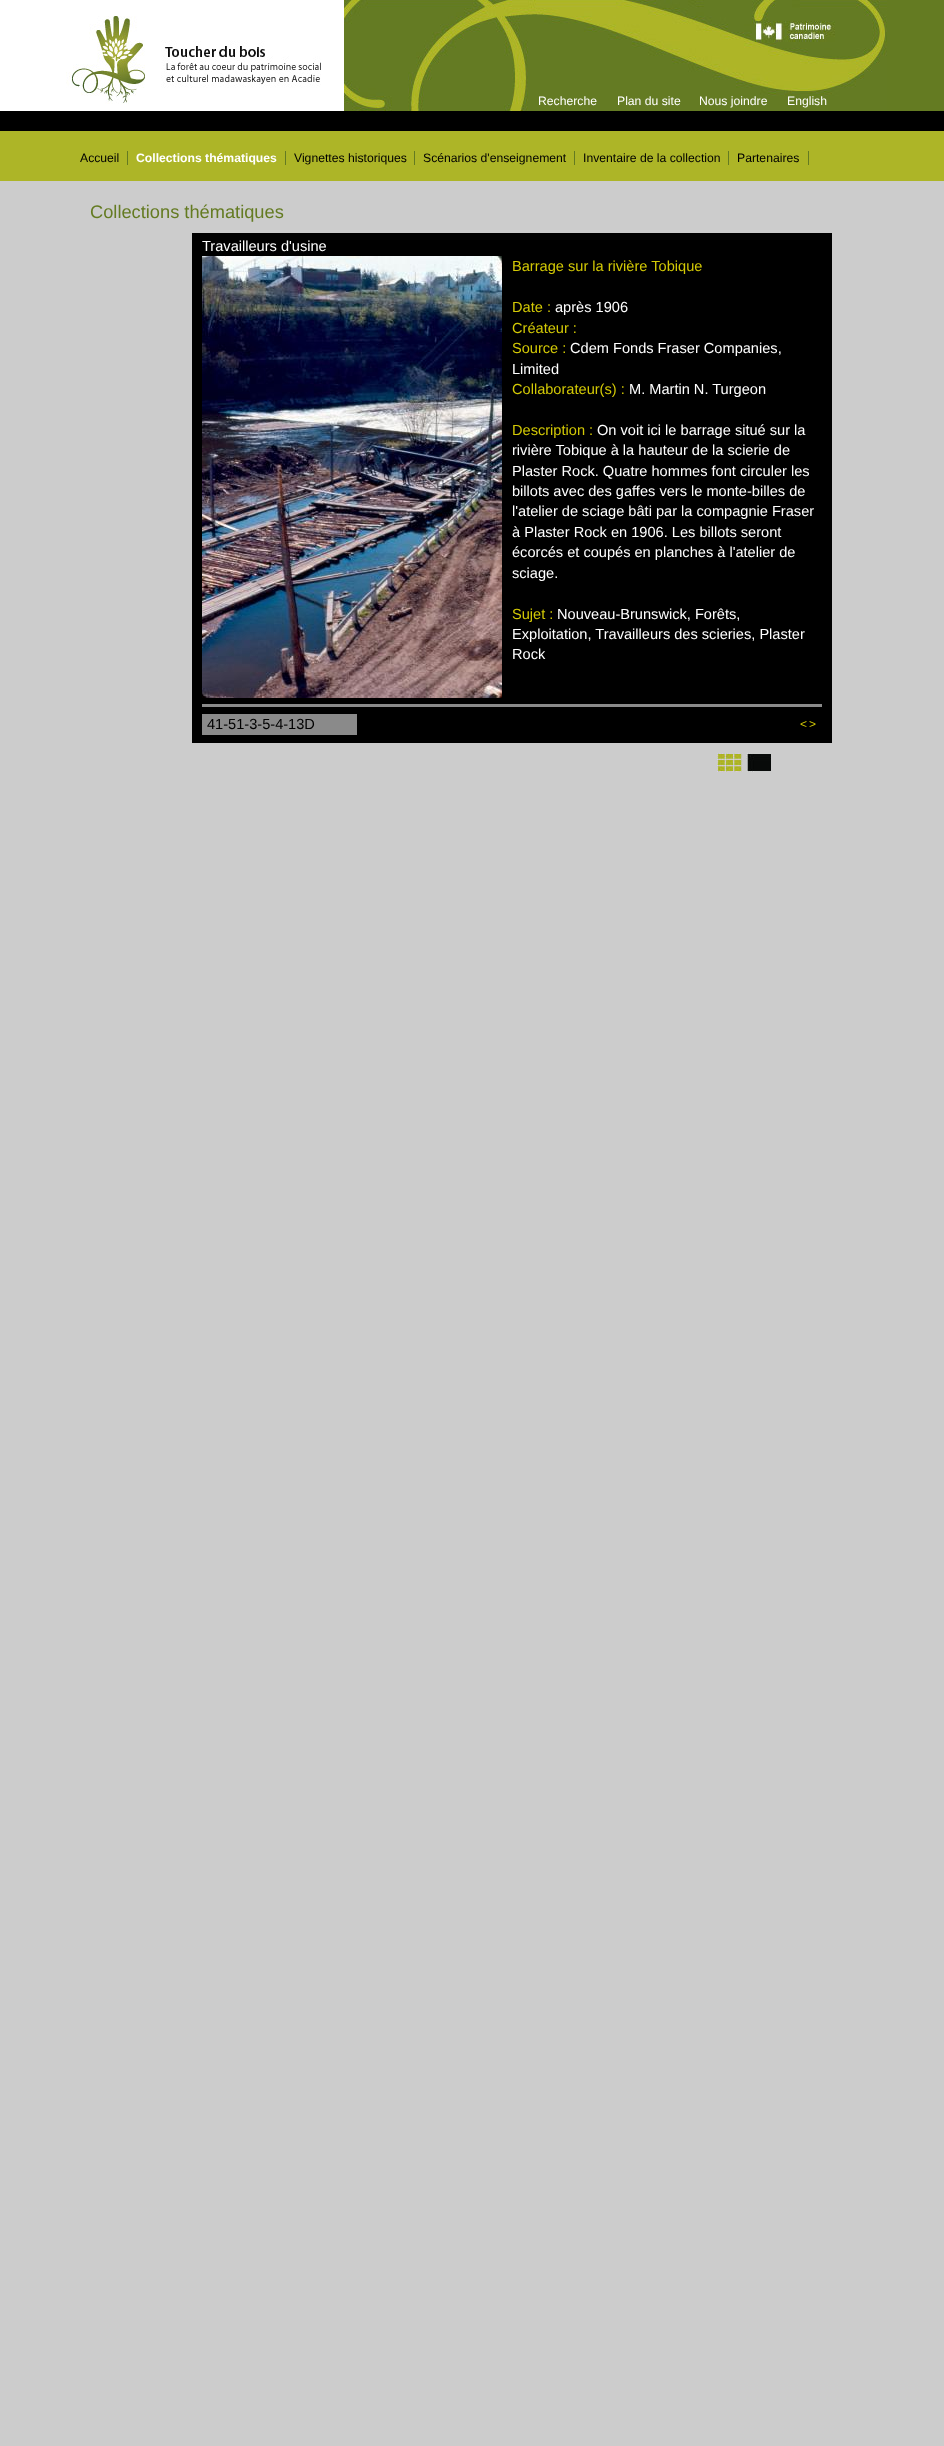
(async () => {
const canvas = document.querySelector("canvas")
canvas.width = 944
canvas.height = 2446
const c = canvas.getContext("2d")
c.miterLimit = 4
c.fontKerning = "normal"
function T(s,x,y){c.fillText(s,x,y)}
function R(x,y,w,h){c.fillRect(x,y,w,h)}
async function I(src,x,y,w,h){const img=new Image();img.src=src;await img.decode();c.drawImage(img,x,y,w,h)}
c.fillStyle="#ccc"
R(0,0,944,2446)
c.fillStyle="#fff"
R(0,0,344,111)
c.fillStyle="#647b22"
R(887,0,57,111)
await I("1.png",344,0,543,111)
await I("2.png",66,16,255,88)
await I("3.png",755,21,80,21)
c.font="12.2px Liberation Sans"
c.fillStyle="#fff"
T("Recherche",538,105)
T("Plan du site",617,105)
T("Nous joindre",699,105)
T("English",787,105)
c.fillStyle="#000"
R(0,111,944,20)
c.fillStyle="#adb527"
R(0,131,944,50)
c.fillStyle="#647b22"
R(127,151,1,14)
c.fillStyle="#000"
T("Accueil",80,162)
c.fillStyle="#647b22"
R(285,151,1,14)
c.font="bold 12.2px Liberation Sans"
c.fillStyle="#fff"
T("Collections thématiques",136,162)
c.fillStyle="#647b22"
R(414,151,1,14)
c.font="12.2px Liberation Sans"
c.fillStyle="#000"
T("Vignettes historiques",294,162)
c.fillStyle="#647b22"
R(574,151,1,14)
c.fillStyle="#000"
T("Scénarios d'enseignement",423,162)
c.fillStyle="#647b22"
R(728,151,1,14)
c.fillStyle="#000"
T("Inventaire de la collection",583,162)
c.fillStyle="#647b22"
R(808,151,1,14)
c.fillStyle="#000"
T("Partenaires",737,162)
c.font="18.25px Liberation Sans"
c.fillStyle="#647b22"
T("Collections thématiques",90,218)
c.fillStyle="#000"
R(192,233,640,510)
c.font="14.6px Liberation Sans"
c.fillStyle="#fff"
T("Travailleurs d'usine",202,251)
await I("4.png",202,256,300,442)
c.fillStyle="#d3c905"
T("Barrage sur la rivière Tobique",512,271)
T("Date :",512,312)
c.fillStyle="#fff"
T("après 1906",555,312)
c.fillStyle="#d3c905"
T("Créateur :",512,333)
T("Source :",512,353)
c.fillStyle="#fff"
T("Cdem Fonds Fraser Companies,",570,353)
T("Limited",512,374)
c.fillStyle="#d3c905"
T("Collaborateur(s) :",512,394)
c.fillStyle="#fff"
T("M. Martin N. Turgeon",629,394)
c.fillStyle="#d3c905"
T("Description :",512,435)
c.fillStyle="#fff"
T("On voit ici le barrage situé sur la",597,435)
T("rivière Tobique à la hauteur de la scierie de",512,455)
T("Plaster Rock. Quatre hommes font circuler les",512,476)
T("billots avec des gaffes vers le monte-billes de",512,496)
T("l'atelier de sciage bâti par la compagnie Fraser",512,516)
T("à Plaster Rock en 1906. Les billots seront",512,537)
T("écorcés et coupés en planches à l'atelier de",512,557)
T("sciage.",512,578)
c.fillStyle="#d3c905"
T("Sujet :",512,619)
c.fillStyle="#fff"
T("Nouveau-Brunswick, Forêts,",557,619)
T("Exploitation, Travailleurs des scieries, Plaster",512,639)
T("Rock",512,659)
c.fillStyle="#8a8a8a"
R(202,704,620,3)
R(202,714,155,21)
c.fillStyle="#000"
T("41-51-3-5-4-13D",207,729)
c.font="12px Liberation Sans"
c.fillStyle="#d3c905"
T("<",800,728)
T(">",809,728)
await I("5.png",717,753,26,19)
await I("6.png",746,753,25,19)
})()
